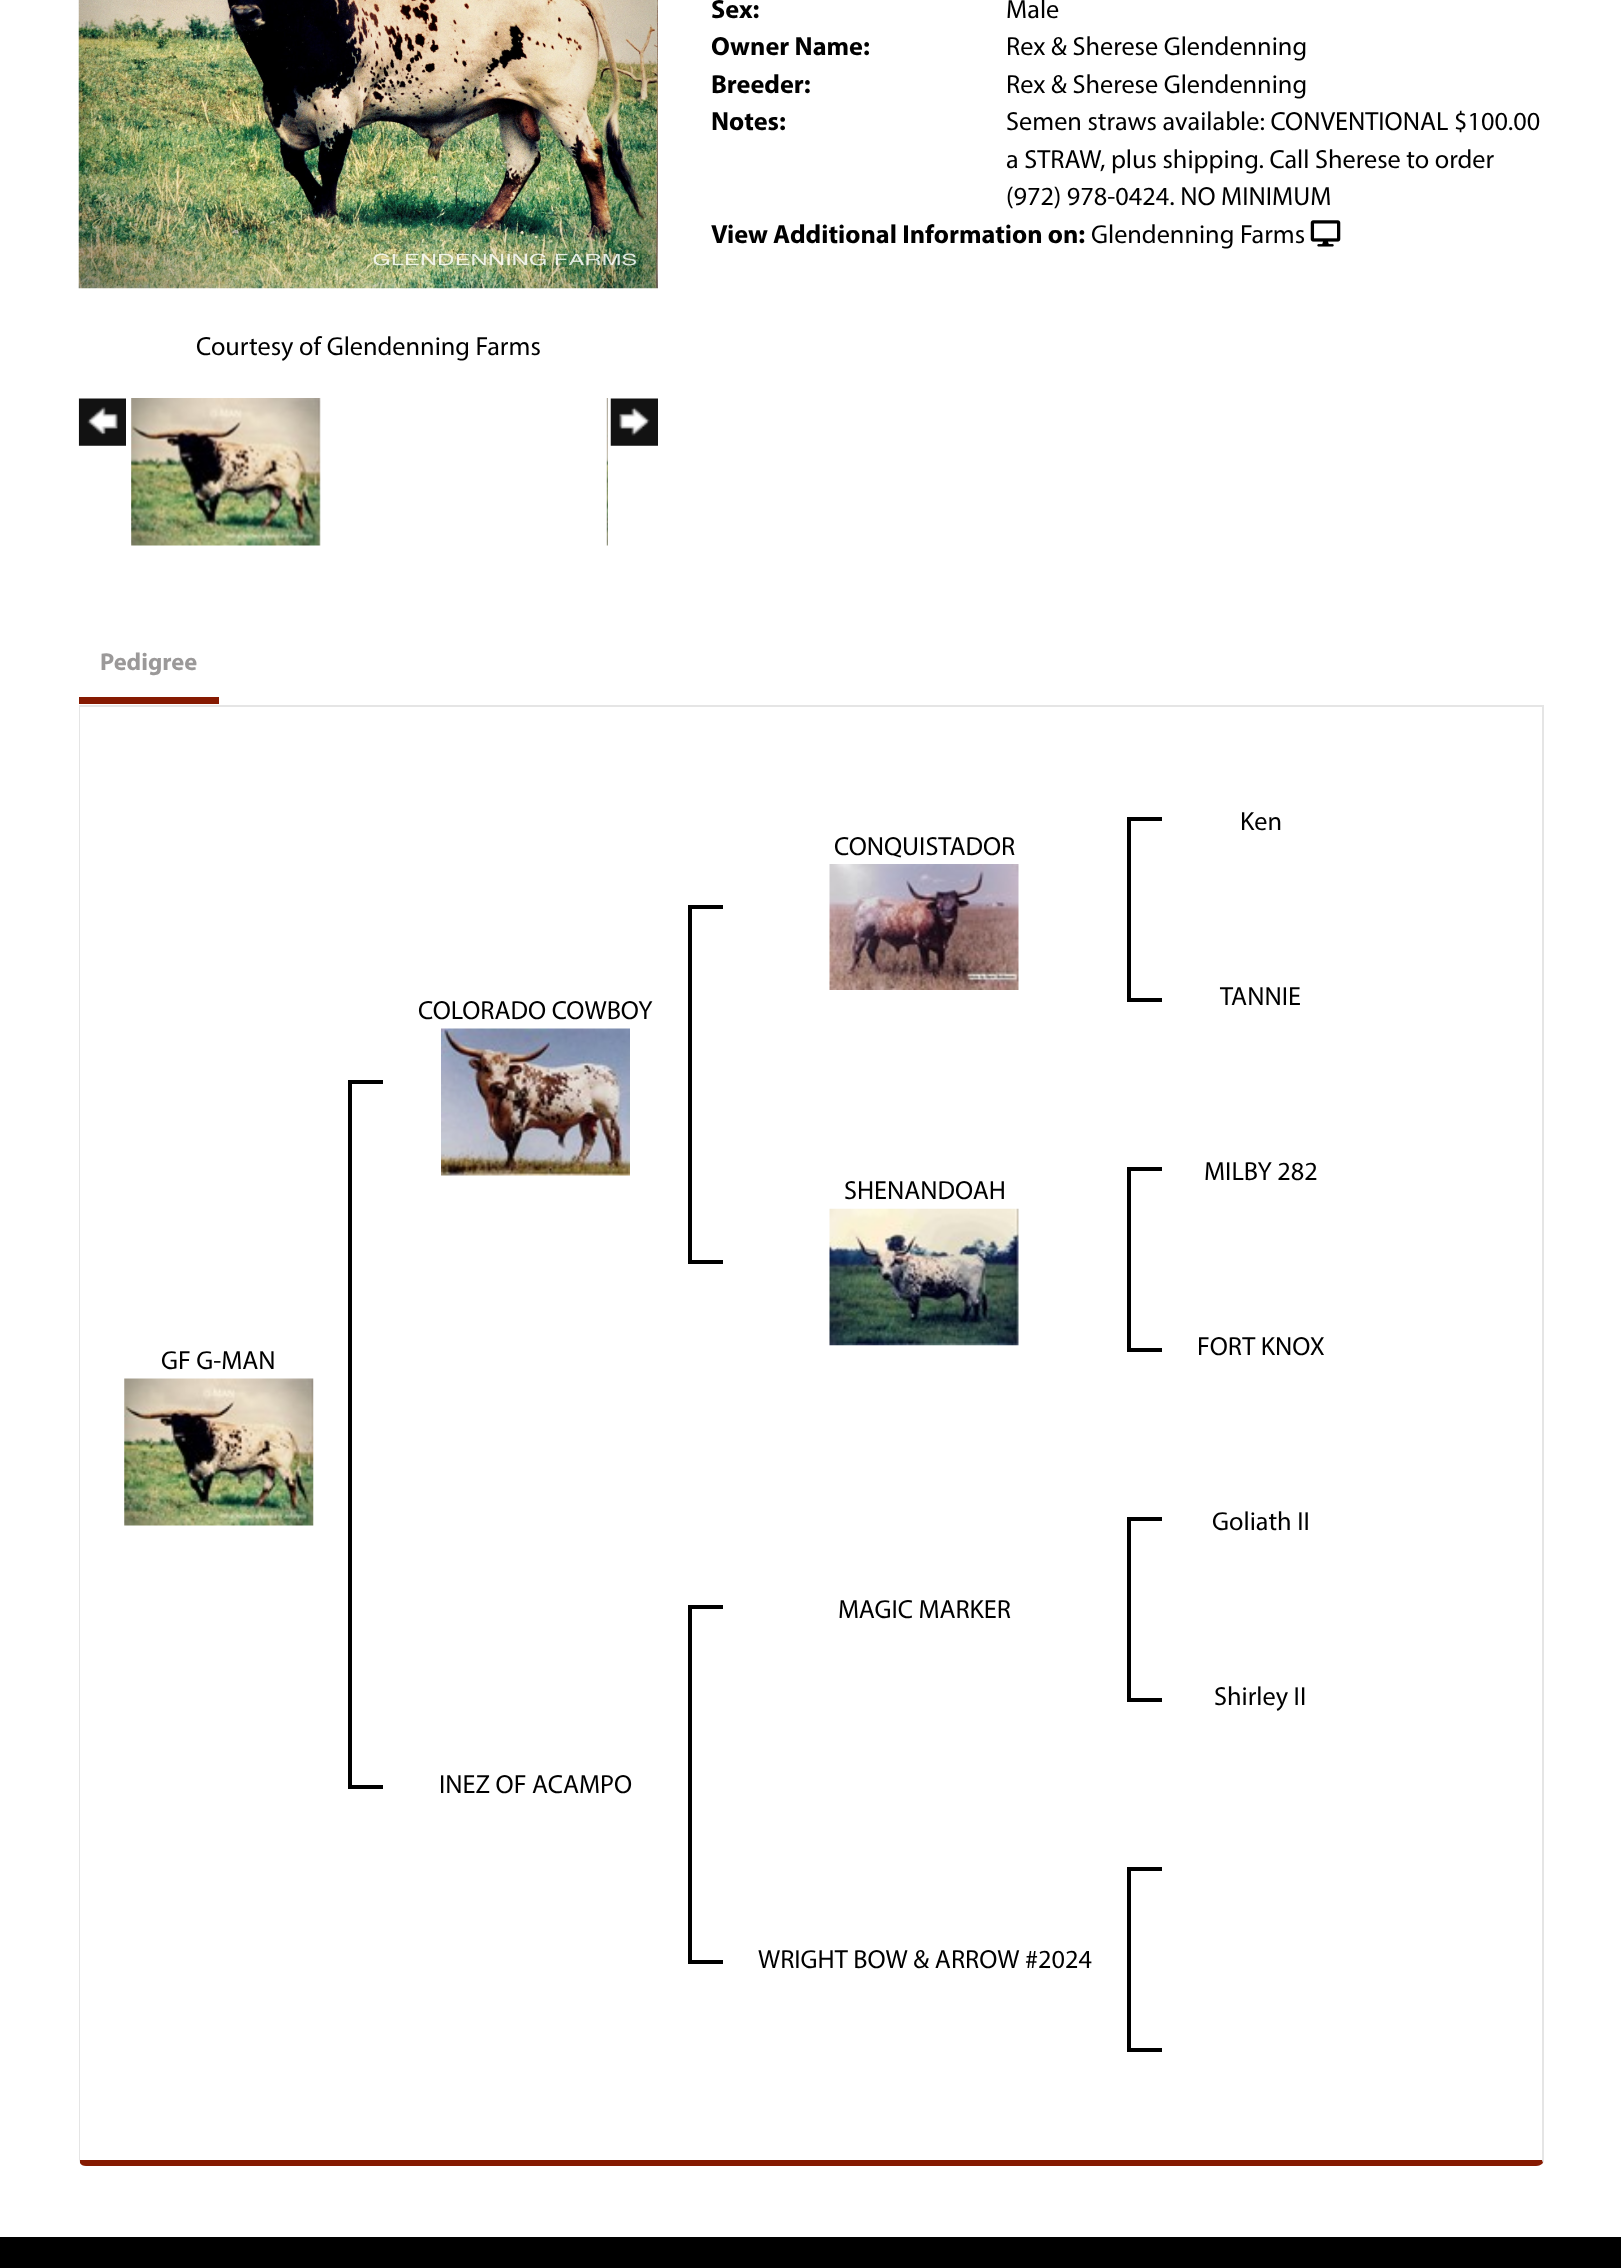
(async () => {
const canvas = document.querySelector("canvas")
canvas.width = 1621
canvas.height = 2268
const c = canvas.getContext("2d")
c.miterLimit = 4
c.fontKerning = "normal"
function T(s,x,y){c.fillText(s,x,y)}
function R(x,y,w,h){c.fillRect(x,y,w,h)}
async function I(src,x,y,w,h){const img=new Image();img.src=src;await img.decode();c.drawImage(img,x,y,w,h)}
let path
c.fillStyle="#fff"
R(0,0,1621,2268)
c.font="bold 26.25px Myriad"
c.fillStyle="#000"
T("Sex:",711,18)
c.font="26.25px Myriad"
T("Male",1006,18)
c.font="bold 26.25px Myriad"
T("Owner Name:",711,55)
c.font="26.25px Myriad"
T("Rex & Sherese Glendenning",1006,55)
c.font="bold 26.25px Myriad"
T("Breeder:",711,93)
c.font="26.25px Myriad"
T("Rex & Sherese Glendenning",1006,93)
c.font="bold 26.25px Myriad"
T("Notes:",711,130)
c.font="26.25px Myriad"
T("Semen straws available: CONVENTIONAL $100.00",1006,130)
T("a STRAW, plus shipping. Call Sherese to order",1006,168)
T("(972) 978-0424. NO MINIMUM",1006,205)
c.font="bold 26.25px Myriad"
T("View Additional Information on:",711,243)
c.font="26.25px Myriad"
T("Glendenning Farms",1091,243)
await I("1.png",1310,220,31,27)
await I("2.png",78,0,580,289)
T("Courtesy of Glendenning Farms",196,355)
await I("3.png",78,398,48,48)
await I("4.png",131,398,190,148)
await I("5.png",606,398,2,148)
await I("6.png",610,398,48,48)
c.fillStyle="#e5e5e5"
R(79,705,1465,2)
c.fillStyle="#861a01"
R(79,697,140,7)
c.font="bold 24.5px Myriad"
c.fillStyle="#9b9999"
T("Pedigree",100,670)
c.fillStyle="#e5e5e5"
path = new Path2D("M1544 707v1455l-1 1l-1-3v-1453z")
c.fill(path)
c.fillStyle="#861a01"
path = new Path2D("M1543 2163c-2 2-4 3-7 3h-1450c-3 0-5-1-6-3v-3h1462z")
c.fill(path)
c.fillStyle="#e5e5e5"
path = new Path2D("M79 707h1v1453v3l-1-3z")
c.fill(path)
c.font="26.25px Myriad"
c.fillStyle="#000"
T("CONQUISTADOR",834,855)
await I("7.png",829,864,190,126)
R(1127,817,35,4)
R(1127,998,35,4)
R(1127,817,4,184)
T("Ken",1240,830)
T("COLORADO COWBOY",418,1019)
await I("8.png",441,1028,189,148)
R(688,905,35,4)
R(688,1260,35,4)
R(688,905,4,359)
T("GF G-MAN",161,1369)
await I("9.png",124,1378,190,148)
R(348,1080,35,4)
R(348,1785,35,4)
R(348,1080,4,709)
T("TANNIE",1220,1005)
T("SHENANDOAH",844,1199)
await I("10.png",829,1208,190,138)
R(1127,1167,35,4)
R(1127,1348,35,4)
R(1127,1167,4,184)
T("MILBY 282",1204,1180)
T("FORT KNOX",1197,1355)
T("INEZ OF ACAMPO",439,1793)
R(688,1605,35,4)
R(688,1960,35,4)
R(688,1605,4,359)
T("MAGIC MARKER",838,1618)
R(1127,1517,35,4)
R(1127,1698,35,4)
R(1127,1517,4,184)
T("Goliath II",1212,1530)
T("Shirley II",1214,1705)
T("WRIGHT BOW & ARROW #2024",758,1968)
R(1127,1867,35,4)
R(1127,2048,35,4)
R(1127,1867,4,184)
R(0,2237,1621,31)
})()
